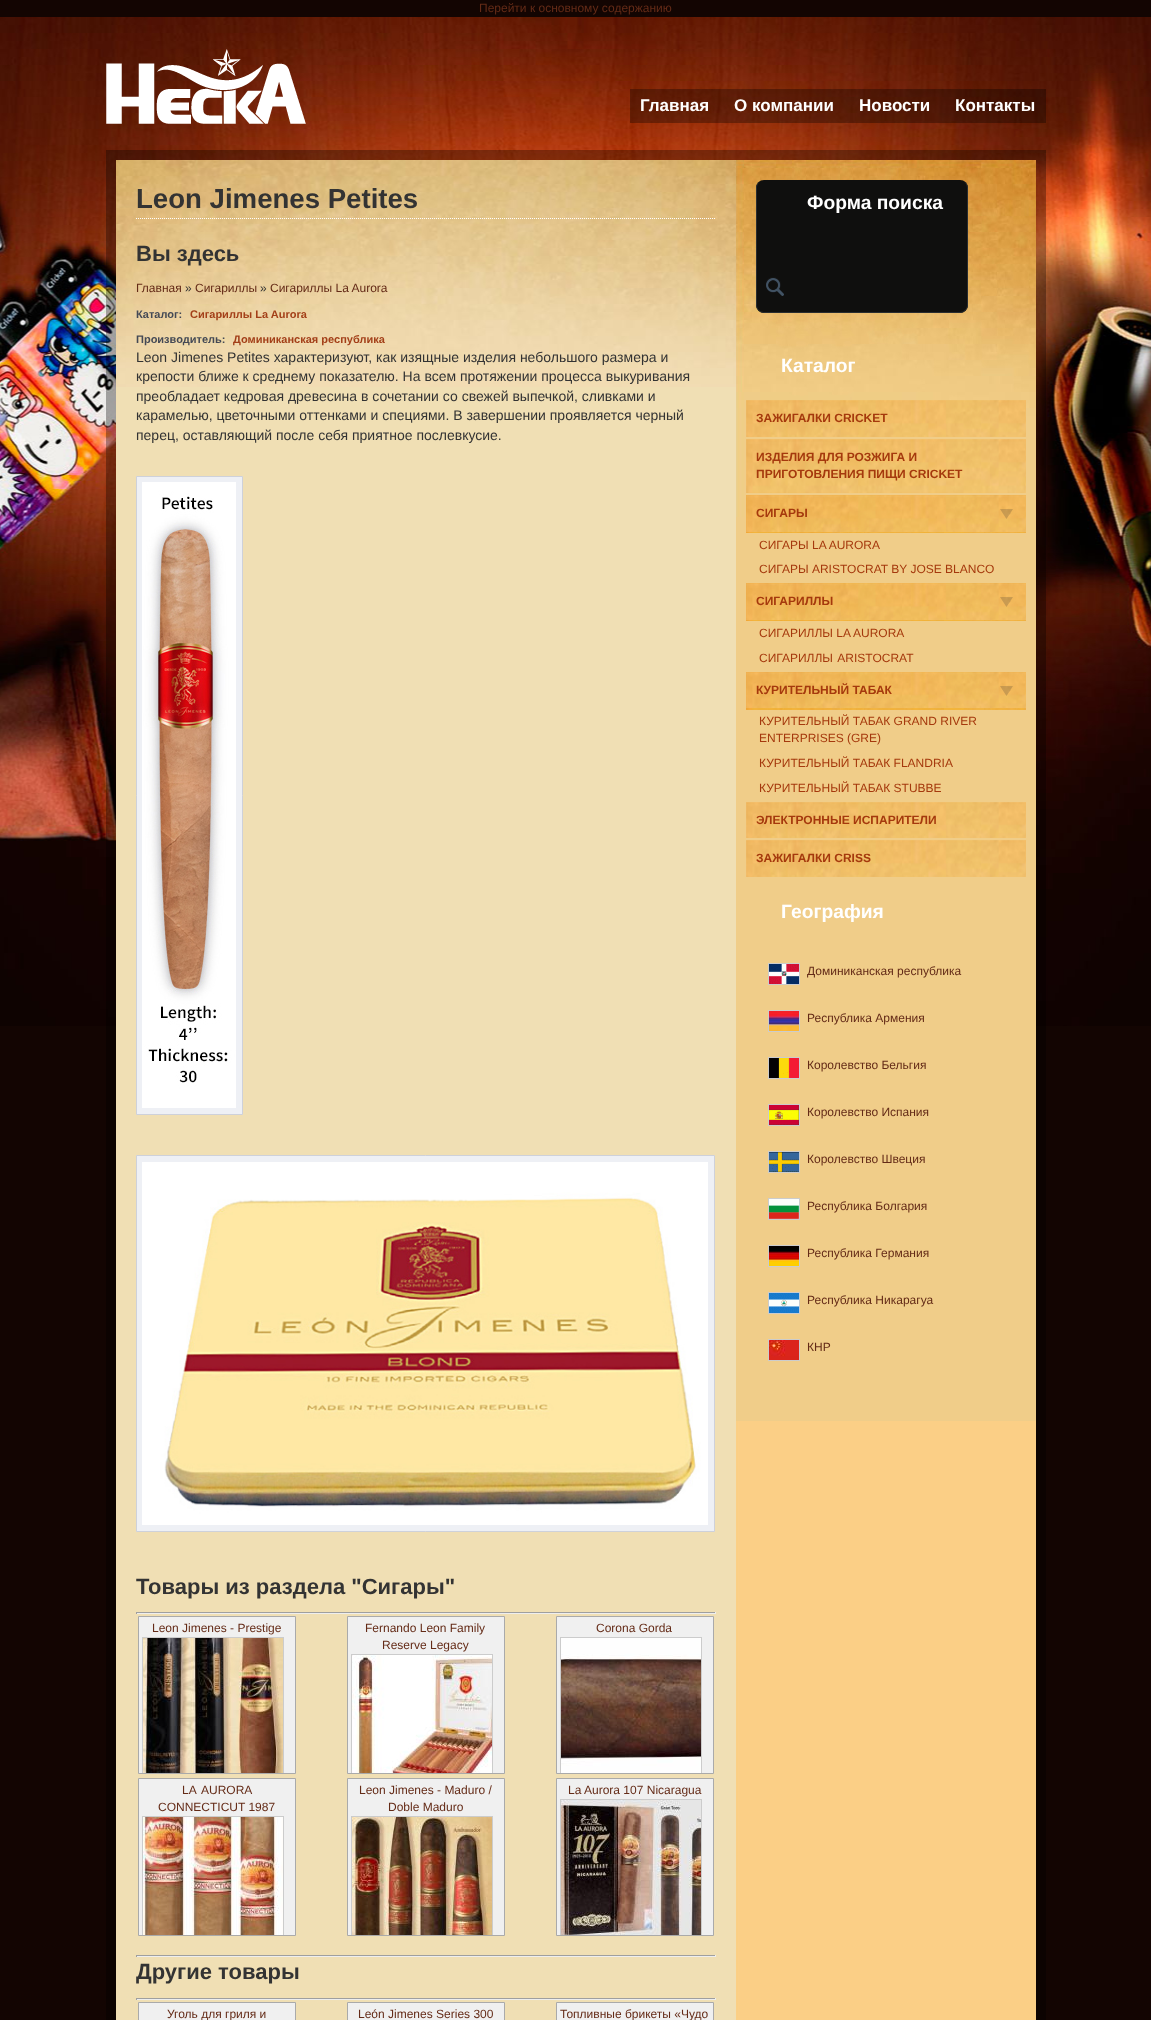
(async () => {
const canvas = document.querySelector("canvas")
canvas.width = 1151
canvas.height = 2020
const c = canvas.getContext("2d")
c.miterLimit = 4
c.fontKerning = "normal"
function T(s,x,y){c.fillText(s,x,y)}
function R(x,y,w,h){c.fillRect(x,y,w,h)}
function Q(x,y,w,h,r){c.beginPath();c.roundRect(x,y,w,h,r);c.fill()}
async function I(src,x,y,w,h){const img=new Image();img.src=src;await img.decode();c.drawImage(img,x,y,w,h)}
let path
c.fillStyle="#130502"
R(0,0,1151,2020)
c.font="12px Liberation Sans"
c.fillStyle="#642b17"
T("Перейти к основному содержанию",479,12)
await I("1.png",0,17,1151,1009)
await I("2.png",106,49,200,75)
c.fillStyle="#00000052"
R(630,89,416,34)
c.font="bold 17px Liberation Sans"
c.fillStyle="#fff"
T("Главная",640,111)
T("О компании",734,111)
T("Новости",859,111)
T("Контакты",955,111)
c.fillStyle="#00000052"
R(106,150,940,1870)
await I("3.png",736,1421,300,599)
c.fillStyle="#f0dfb4"
R(116,387,620,1633)
await I("4.png",116,160,620,227)
path = new Path2D("M136 218.5h580")
c.strokeStyle="#fff"
c.setLineDash([1,1])
c.stroke(path)
c.font="bold 27.6px Liberation Sans"
c.fillStyle="#333"
T("Leon Jimenes Petites",136,208)
c.font="bold 22px Liberation Sans"
T("Вы здесь",136,261)
c.font="12px Liberation Sans"
c.fillStyle="#642b17"
T("Главная",136,292)
c.fillStyle="#333"
T("»",185,292)
c.fillStyle="#642b17"
T("Сигариллы",195,292)
c.fillStyle="#333"
T("»",260,292)
c.fillStyle="#642b17"
T("Сигариллы La Aurora",270,292)
c.font="bold 11px Liberation Sans"
c.fillStyle="#444955"
T("Каталог:",136,318)
c.fillStyle="#a33f18"
T("Сигариллы La Aurora",190,318)
c.fillStyle="#444955"
T("Производитель:",136,343)
c.fillStyle="#a33f18"
T("Доминиканская республика",233,343)
c.font="14px Liberation Sans"
c.fillStyle="#333"
T("Leon Jimenes Petites характеризуют, как изящные изделия небольшого размера и",136,362)
T("крепости ближе к среднему показателю. На всем протяжении процесса выкуривания",136,381)
T("преобладает кедровая древесина в сочетании со свежей выпечкой, сливками и",136,401)
T("карамелью, цветочными оттенками и специями. В завершении проявляется черный",136,420)
T("перец, оставляющий после себя приятное послевкусие.",136,440)
c.fillStyle="#eef0f5"
c.beginPath()
c.rect(136.5,476.5,106,638)
c.fill()
c.strokeStyle="#ced1da"
c.setLineDash([])
c.stroke()
await I("5.png",142,482,94,626)
c.beginPath()
c.rect(136.5,1155.5,578,376)
c.fill()
c.stroke()
await I("6.png",142,1162,566,363)
c.font="bold 22px Liberation Sans"
c.fillStyle="#333"
T("Товары из раздела \"Сигары\"",136,1594)
c.fillStyle="#9f9f9f"
R(136,1612,580,1)
c.fillStyle="#eee"
R(715,1612,1,2)
R(136,1613,580,1)
c.fillStyle="#9f9f9f"
R(136,1612,1,2)
c.fillStyle="#f0f0f0"
c.beginPath()
c.rect(138.5,1616.5,157,157)
c.fill()
c.strokeStyle="#aaa"
c.stroke()
c.font="12px Liberation Sans"
c.fillStyle="#642b17"
T("Leon Jimenes - Prestige",152,1632)
c.save()
c.beginPath()
c.rect(139,1617,156,156)
c.clip()
c.strokeStyle="#ccc"
c.strokeRect(142.5,1637.5,141,141)
c.restore()
await I("7.png",143,1638,140,135)
c.fillStyle="#f0f0f0"
c.beginPath()
c.rect(347.5,1616.5,157,157)
c.fill()
c.stroke()
c.fillStyle="#642b17"
T("Fernando Leon Family",365,1632)
T("Reserve Legacy",382,1649)
c.save()
c.beginPath()
c.rect(348,1617,156,156)
c.clip()
c.strokeStyle="#ccc"
c.strokeRect(351.5,1654.5,141,141)
c.restore()
await I("8.png",352,1655,140,118)
c.fillStyle="#f0f0f0"
c.beginPath()
c.rect(556.5,1616.5,157,157)
c.fill()
c.stroke()
c.fillStyle="#642b17"
T("Corona Gorda",596,1632)
c.save()
c.beginPath()
c.rect(557,1617,156,156)
c.clip()
c.strokeStyle="#ccc"
c.strokeRect(560.5,1637.5,141,141)
c.restore()
await I("9.png",561,1638,140,135)
c.fillStyle="#f0f0f0"
c.beginPath()
c.rect(138.5,1778.5,157,157)
c.fill()
c.stroke()
c.wordSpacing="1px"
c.fillStyle="#642b17"
T("LА AURORA",182,1794)
c.wordSpacing="0px"
T("CONNECTICUT 1987",158,1811)
c.save()
c.beginPath()
c.rect(139,1779,156,156)
c.clip()
c.strokeStyle="#ccc"
c.strokeRect(142.5,1816.5,141,141)
c.restore()
await I("10.png",143,1817,140,118)
c.fillStyle="#f0f0f0"
c.beginPath()
c.rect(347.5,1778.5,157,157)
c.fill()
c.stroke()
c.fillStyle="#642b17"
T("Leon Jimenes - Maduro /",359,1794)
T("Doble Maduro",388,1811)
c.save()
c.beginPath()
c.rect(348,1779,156,156)
c.clip()
c.strokeStyle="#ccc"
c.strokeRect(351.5,1816.5,141,141)
c.restore()
await I("11.png",352,1817,140,118)
c.fillStyle="#f0f0f0"
c.beginPath()
c.rect(556.5,1778.5,157,157)
c.fill()
c.stroke()
c.fillStyle="#642b17"
T("La Aurora 107 Nicaragua",568,1794)
c.save()
c.beginPath()
c.rect(557,1779,156,156)
c.clip()
c.strokeStyle="#ccc"
c.strokeRect(560.5,1799.5,141,141)
c.restore()
await I("12.png",561,1800,140,135)
c.fillStyle="#9f9f9f"
R(136,1955,580,1)
c.fillStyle="#eee"
R(715,1955,1,2)
R(136,1956,580,1)
c.fillStyle="#9f9f9f"
R(136,1955,1,2)
c.font="bold 22px Liberation Sans"
c.fillStyle="#333"
T("Другие товары",136,1979)
c.fillStyle="#9f9f9f"
R(136,1998,580,1)
c.fillStyle="#eee"
R(715,1998,1,2)
R(136,1999,580,1)
c.fillStyle="#9f9f9f"
R(136,1998,1,2)
c.fillStyle="#f0f0f0"
c.beginPath()
c.rect(138.5,2002.5,157,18)
c.fill()
c.stroke()
c.font="12px Liberation Sans"
c.fillStyle="#642b17"
T("Уголь для гриля и",167,2018)
c.fillStyle="#f0f0f0"
c.beginPath()
c.rect(347.5,2002.5,157,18)
c.fill()
c.stroke()
c.fillStyle="#642b17"
T("León Jimenes Series 300",358,2018)
c.fillStyle="#f0f0f0"
c.beginPath()
c.rect(556.5,2002.5,157,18)
c.fill()
c.stroke()
c.fillStyle="#642b17"
T("Топливные брикеты «Чудо",560,2018)
c.fillStyle="#f0cd89"
R(736,517,300,904)
await I("13.png",736,160,300,357)
c.fillStyle="#0f0f0e"
Q(756,180,212,133,8)
c.fillStyle="#292d30"
path = new Path2D("M764 180h196c4 0 8 4 8 8v117c0 4-4 8-8 8h-196c-4 0-8-4-8-8v-117c0-4 4-8 8-8zm0 0h196c4 0 7 4 7 8v117c0 4-3 7-7 7h-196c-4 0-7-3-7-7v-117c0-4 3-8 7-8z")
c.fill(path,"evenodd")
c.font="bold 19.25px Liberation Sans"
c.fillStyle="#fff"
T("Форма поиска",807,209)
await I("14.png",766,277,18,19)
T("Каталог",781,372)
await I("15.png",746,400,280,37)
c.font="bold 12px Liberation Sans"
c.fillStyle="#a5390d"
T("ЗАЖИГАЛКИ CRICKET",756,422)
await I("16.png",746,439,280,54)
T("ИЗДЕЛИЯ ДЛЯ РОЗЖИГА И",756,461)
T("ПРИГОТОВЛЕНИЯ ПИЩИ CRICKET",756,478)
await I("17.png",746,495,280,38)
await I("18.png",746,495,280,37)
T("СИГАРЫ",756,517)
c.font="12px Liberation Sans"
T("СИГАРЫ LA AURORA",759,549)
T("СИГАРЫ ARISTOCRAT BY JOSE BLANCO",759,573)
await I("17.png",746,583,280,38)
await I("18.png",746,583,280,37)
c.font="bold 12px Liberation Sans"
T("СИГАРИЛЛЫ",756,605)
c.font="12px Liberation Sans"
T("СИГАРИЛЛЫ LA AURORA",759,637)
c.wordSpacing="1px"
T("СИГАРИЛЛЫ ARISTOCRAT",759,662)
await I("17.png",746,672,280,38)
await I("19.png",746,672,280,36)
c.wordSpacing="0px"
c.font="bold 12px Liberation Sans"
T("КУРИТЕЛЬНЫЙ ТАБАК",756,694)
c.font="12px Liberation Sans"
T("КУРИТЕЛЬНЫЙ ТАБАК GRAND RIVER",759,725)
T("ENTERPRISES (GRE)",759,742)
T("КУРИТЕЛЬНЫЙ ТАБАК FLANDRIA",759,767)
T("КУРИТЕЛЬНЫЙ ТАБАК STUBBE",759,792)
await I("20.png",746,802,280,36)
c.font="bold 12px Liberation Sans"
T("ЭЛЕКТРОННЫЕ ИСПАРИТЕЛИ",756,824)
await I("21.png",746,840,280,37)
T("ЗАЖИГАЛКИ CRISS",756,862)
c.font="bold 19.25px Liberation Sans"
c.fillStyle="#fff"
T("География",781,918)
c.strokeStyle="#ccc"
c.strokeRect(768.5,963.5,31,21)
await I("22.png",769,964,30,20)
c.font="12px Liberation Sans"
c.fillStyle="#642b17"
T("Доминиканская республика",807,975)
c.strokeRect(768.5,1010.5,31,21)
await I("23.png",769,1011,30,20)
T("Республика Армения",807,1022)
c.strokeRect(768.5,1057.5,31,21)
await I("24.png",769,1058,30,20)
T("Королевство Бельгия",807,1069)
c.strokeRect(768.5,1104.5,31,21)
await I("25.png",769,1105,30,20)
T("Королевство Испания",807,1116)
c.strokeRect(768.5,1151.5,31,21)
await I("26.png",769,1152,30,20)
T("Королевство Швеция",807,1163)
c.strokeRect(768.5,1198.5,31,21)
await I("27.png",769,1199,30,20)
T("Республика Болгария",807,1210)
c.strokeRect(768.5,1245.5,31,21)
await I("28.png",769,1246,30,20)
T("Республика Германия",807,1257)
c.strokeRect(768.5,1292.5,31,21)
await I("29.png",769,1293,30,20)
T("Республика Никарагуа",807,1304)
c.strokeRect(768.5,1339.5,31,21)
await I("30.png",769,1340,30,20)
T("КНР",807,1351)
})()
